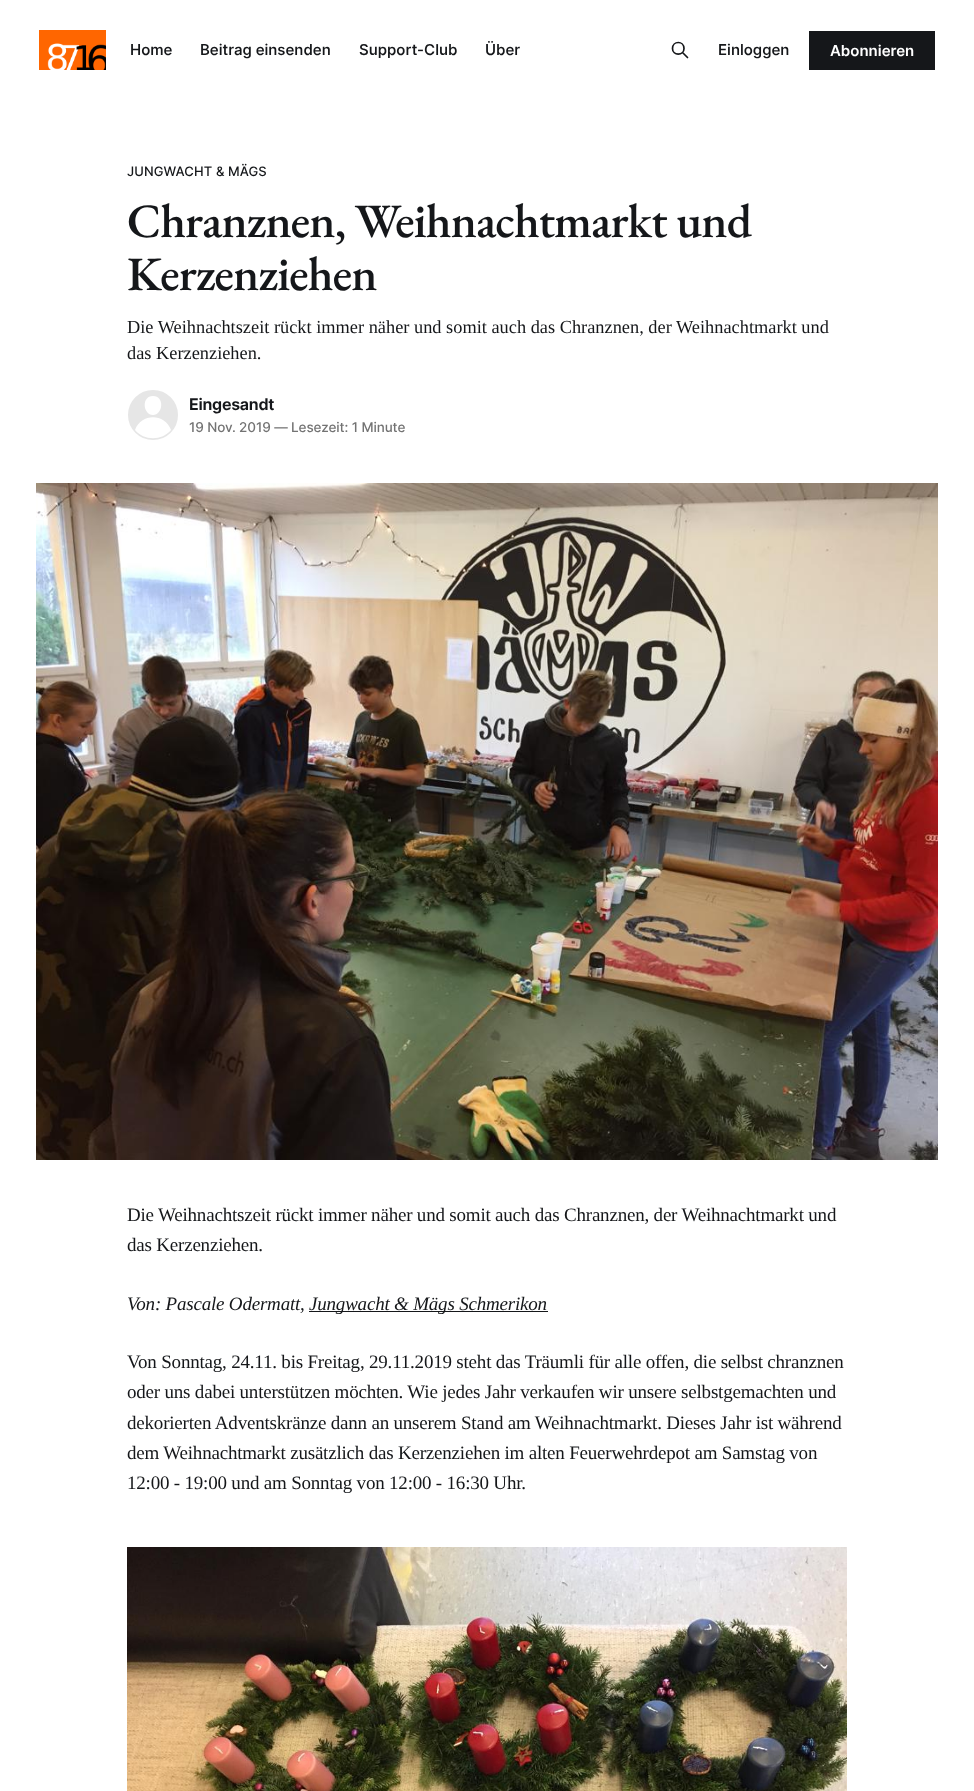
(async () => {
const canvas = document.querySelector("canvas")
canvas.width = 974
canvas.height = 1791
const c = canvas.getContext("2d")
c.miterLimit = 4
c.fontKerning = "normal"
function T(s,x,y){c.fillText(s,x,y)}
function R(x,y,w,h){c.fillRect(x,y,w,h)}
async function I(src,x,y,w,h){const img=new Image();img.src=src;await img.decode();c.drawImage(img,x,y,w,h)}
let path
c.fillStyle="#fff"
R(0,0,974,1791)
await I("1.png",39,30,67,40)
c.font="500 15px Inter"
c.fillStyle="#15171a"
T("Home",130,55)
T("Beitrag einsenden",200,55)
T("Support-Club",359,55)
T("Über",485,55)
path = new Path2D("M687.5 57.5l-5-5m1.5-4c0 7.5-11.5 7.5-11.5 0c0-8 11.5-8 11.5 0z")
c.strokeStyle="#15171a"
c.lineWidth=1.7
c.lineCap="round"
c.lineJoin="round"
c.stroke(path)
T("Einloggen",718,55)
R(809,31,126,39)
c.font="600 15px Inter"
c.fillStyle="#fff"
T("Abonnieren",830,56)
c.letterSpacing="0.1px"
c.font="500 13px 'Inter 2'"
c.fillStyle="#15171a"
T("JUNGWACHT & MÄGS",127,176)
c.letterSpacing="-0.9px"
c.font="500 48px EB Garamond"
T("Chranznen, Weihnachtmarkt und",127,237)
T("Kerzenziehen",127,290)
c.letterSpacing="0px"
c.font="18.35px Liberation Serif"
T("Die Weihnachtszeit rückt immer näher und somit auch das Chranznen, der Weihnachtmarkt und",127,333)
T("das Kerzenziehen.",127,359)
c.fillStyle="#e6e6e6"
c.beginPath()
c.arc(153,415,26.5,0,7)
c.fill()
c.strokeStyle="#fff"
c.lineWidth=3
c.stroke()
c.fillStyle="#fff"
path = new Path2D("M135 430c6-17 30-17 36 0c-9 11-27 11-36 0zm18-15c10 0 12-19 0-19c-12 0-10 19 0 19z")
c.fill(path,"evenodd")
c.letterSpacing="-0.25px"
c.font="600 16px 'Inter 2'"
c.fillStyle="#15171a"
T("Eingesandt",189,410)
c.letterSpacing="-0.1px"
c.font="500 13.5px 'Inter 2'"
c.fillStyle="#737373"
T("19 Nov. 2019 — Lesezeit: 1 Minute",189,432)
await I("2.png",36,483,902,677)
c.letterSpacing="-0.2px"
c.font="19px Liberation Serif"
c.fillStyle="#15171a"
T("Die Weihnachtszeit rückt immer näher und somit auch das Chranznen, der Weihnachtmarkt und",127,1221)
T("das Kerzenziehen.",127,1251)
c.font="italic 19px Liberation Serif"
T("Von: Pascale Odermatt,",127,1310)
R(309,1311,239,1)
T("Jungwacht & Mägs Schmerikon",309,1310)
c.font="19px Liberation Serif"
T("Von Sonntag, 24.11. bis Freitag, 29.11.2019 steht das Träumli für alle offen, die selbst chranznen",127,1368)
T("oder uns dabei unterstützen möchten. Wie jedes Jahr verkaufen wir unsere selbstgemachten und",127,1398)
T("dekorierten Adventskränze dann an unserem Stand am Weihnachtmarkt. Dieses Jahr ist während",127,1429)
T("dem Weihnachtmarkt zusätzlich das Kerzenziehen im alten Feuerwehrdepot am Samstag von",127,1459)
T("12:00 - 19:00 und am Sonntag von 12:00 - 16:30 Uhr.",127,1489)
await I("3.png",127,1547,720,244)
})()
